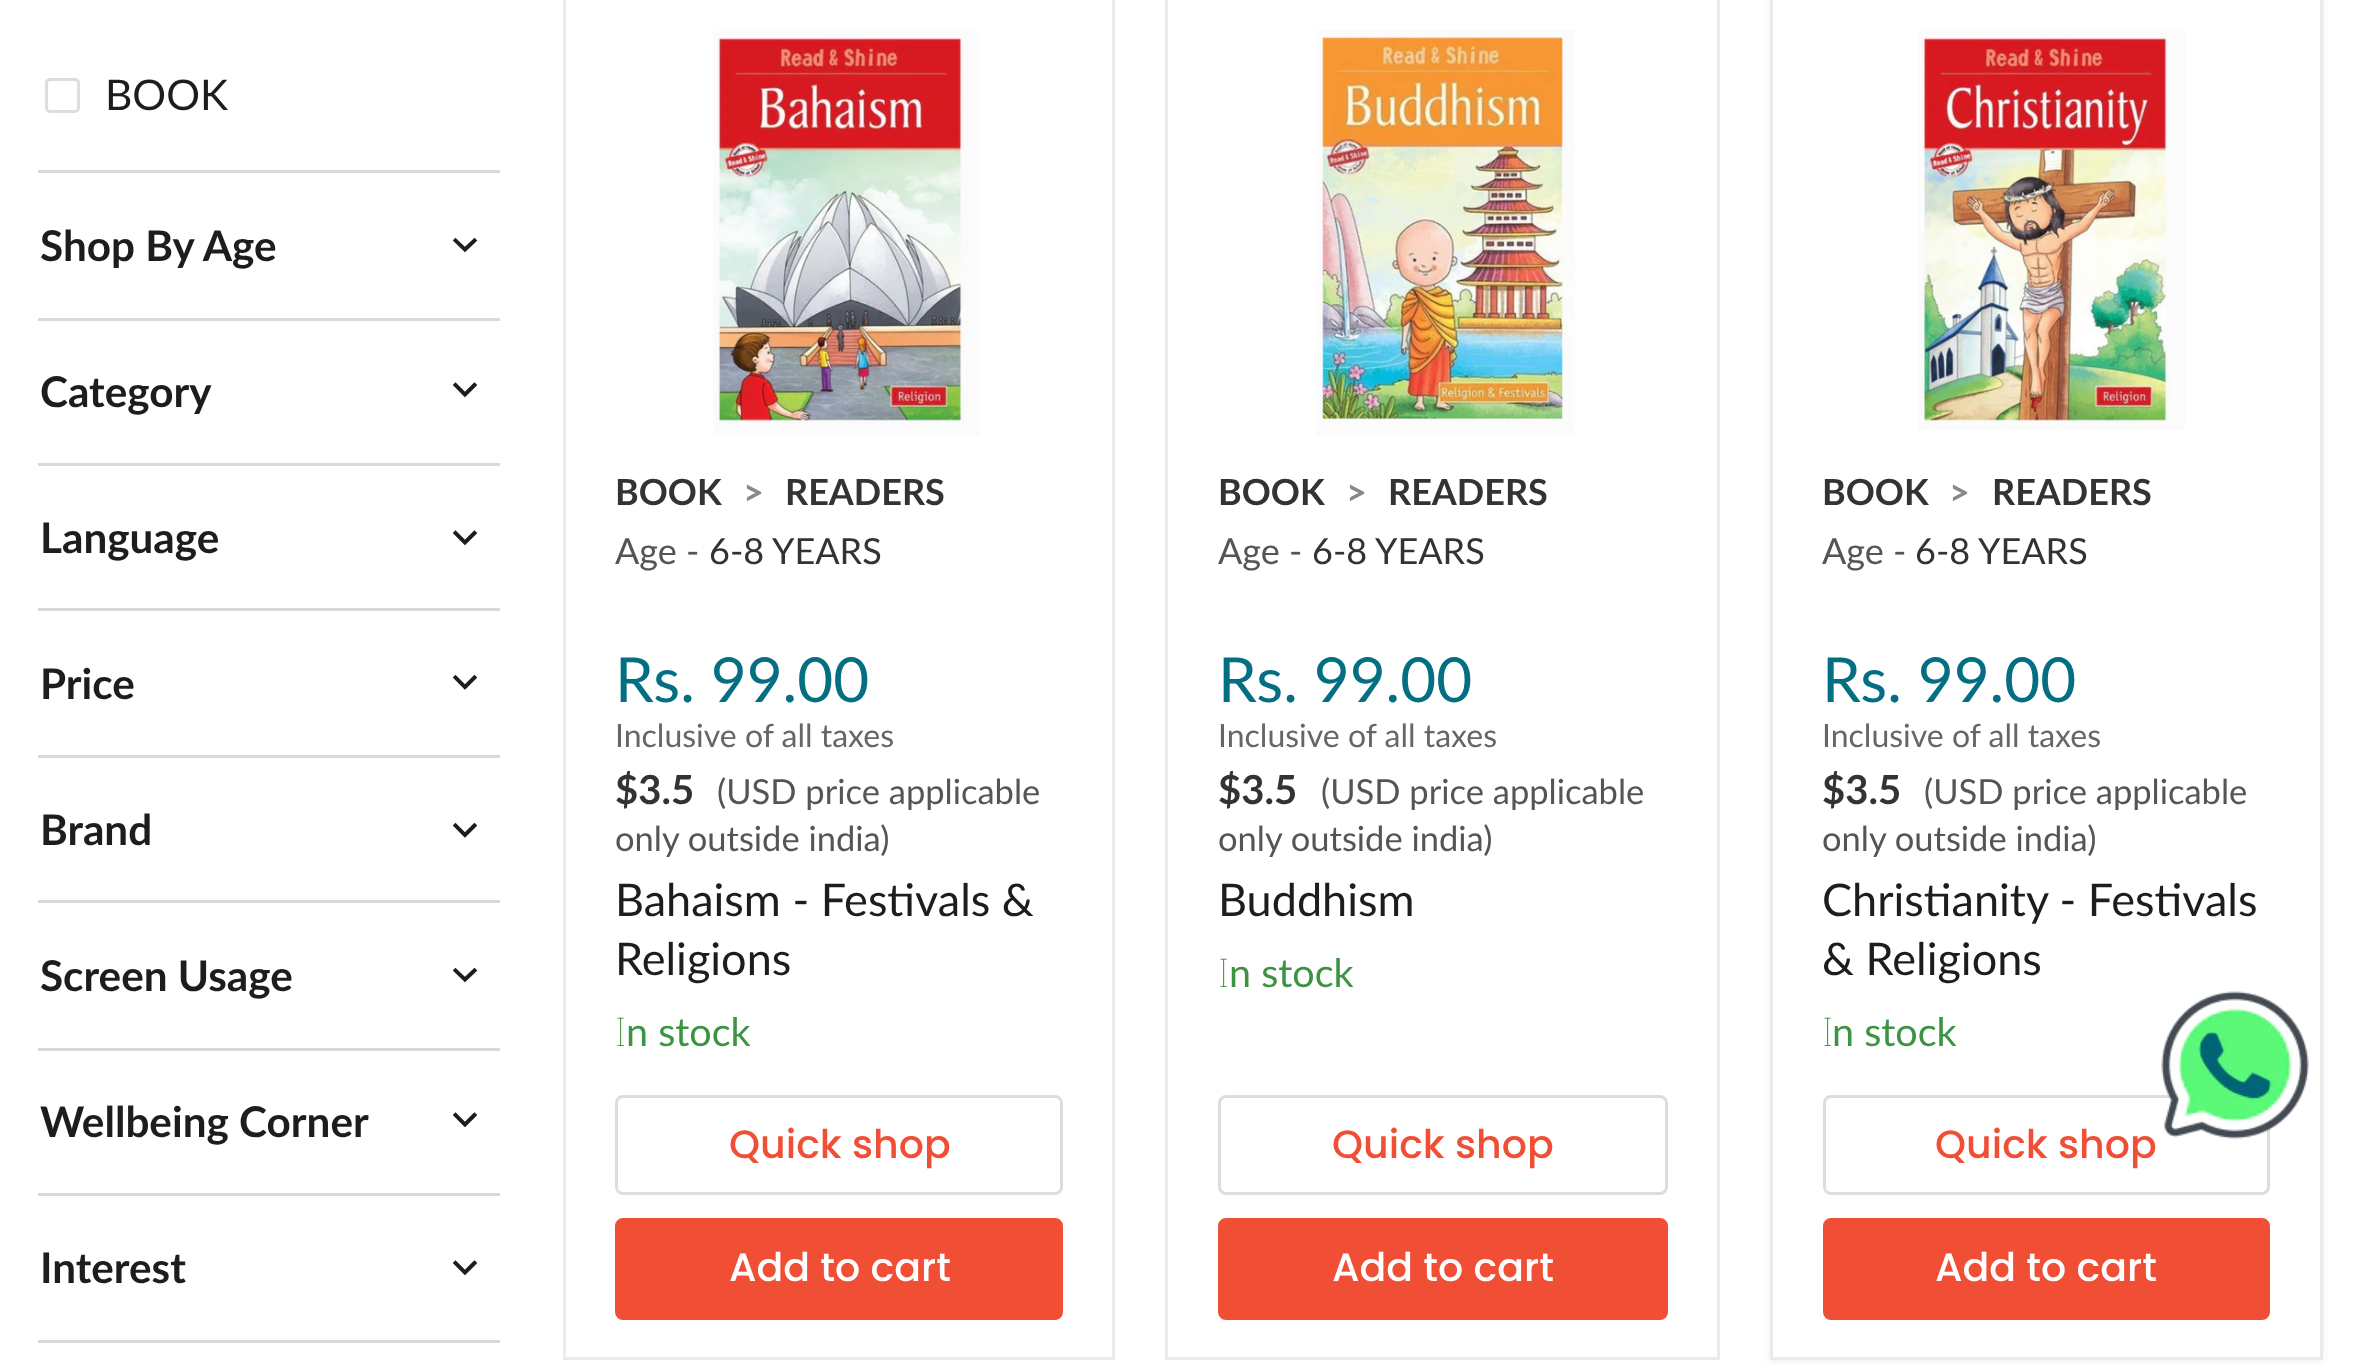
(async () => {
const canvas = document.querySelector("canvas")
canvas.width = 2360
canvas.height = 1364
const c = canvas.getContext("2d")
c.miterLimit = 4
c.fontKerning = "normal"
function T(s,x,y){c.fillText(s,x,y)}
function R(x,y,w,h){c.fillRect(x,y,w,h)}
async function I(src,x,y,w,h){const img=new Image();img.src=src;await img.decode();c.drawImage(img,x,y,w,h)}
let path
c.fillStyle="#fff"
R(0,0,2360,1364)
c.beginPath()
c.roundRect(46.5,79.5,32,32,3.5)
c.strokeStyle="#ddd"
c.lineWidth=3
c.stroke()
c.font="42.25px Lato"
c.fillStyle="#1d1d1d"
T("BOOK",105,110)
c.fillStyle="#d9d9d9"
R(38,170,462,3)
c.font="bold 42.25px Lato"
c.fillStyle="#1d1d1d"
T("Shop By Age",40,261)
path = new Path2D("M465 249.5l9.5-9m-9.5 9l-9.5-9")
c.strokeStyle="#1d1d1d"
c.lineWidth=3.9
c.lineCap="square"
c.stroke(path)
c.fillStyle="#d9d9d9"
R(38,318,462,3)
c.fillStyle="#1d1d1d"
T("Category",40,407)
path = new Path2D("M465 394.5l9.5-9.5m-9.5 9.5l-9.5-9.5")
c.stroke(path)
c.fillStyle="#d9d9d9"
R(38,463,462,3)
c.fillStyle="#1d1d1d"
T("Language",40,553)
path = new Path2D("M465 542.5l9.5-9.5m-9.5 9.5l-9.5-9.5")
c.stroke(path)
c.fillStyle="#d9d9d9"
R(38,608,462,3)
c.fillStyle="#1d1d1d"
T("Price",40,699)
path = new Path2D("M465 687l9.5-9.5m-9.5 9.5l-9.5-9.5")
c.stroke(path)
c.fillStyle="#d9d9d9"
R(38,755,462,3)
c.fillStyle="#1d1d1d"
T("Brand",40,845)
path = new Path2D("M465 835l9.5-9.5m-9.5 9.5l-9.5-9.5")
c.stroke(path)
c.fillStyle="#d9d9d9"
R(38,900,462,3)
c.fillStyle="#1d1d1d"
T("Screen Usage",40,991)
path = new Path2D("M465 979.5l9.5-9m-9.5 9l-9.5-9")
c.stroke(path)
c.fillStyle="#d9d9d9"
R(38,1048,462,3)
c.fillStyle="#1d1d1d"
T("Wellbeing Corner",40,1137)
path = new Path2D("M465 1124.5l9.5-9.5m-9.5 9.5l-9.5-9.5")
c.stroke(path)
c.fillStyle="#d9d9d9"
R(38,1193,462,3)
c.fillStyle="#1d1d1d"
T("Interest",40,1283)
path = new Path2D("M465 1272.5l9.5-9.5m-9.5 9.5l-9.5-9.5")
c.stroke(path)
c.fillStyle="#d9d9d9"
R(38,1340,462,3)
c.strokeStyle="#ebebeb"
c.lineWidth=3
c.strokeRect(564.5,-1.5,549,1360)
await I("1.png",713,31,267,404)
c.font="bold 36px Lato"
c.fillStyle="#333"
T("BOOK",615,505)
c.fillStyle="#888"
T(">",743,505)
c.fillStyle="#333"
T("READERS",785,505)
c.font="36px Lato"
c.fillStyle="#555"
T("Age -",615,564)
c.fillStyle="#333"
T("6-8 YEARS",709,564)
c.font="62px Lato"
c.fillStyle="#046e82"
T("Rs. 99.00",615,702)
c.font="32px Lato"
c.fillStyle="#666"
T("Inclusive of all taxes",615,747)
c.font="bold 40px Lato"
c.fillStyle="#333"
T("$3.5",615,804)
c.font="34.5px Lato"
c.fillStyle="#555"
T("(USD price applicable",717,804)
T("only outside india)",615,851)
c.font="45px Lato"
c.fillStyle="#1d1d1d"
T("Bahaism - Festivals &",615,916)
T("Religions",615,975)
c.font="100 39.5px Noto Sans"
c.fillStyle="#3c9342"
T("I",615,1046)
c.font="39.5px Lato"
T("n stock",626,1046)
c.beginPath()
c.roundRect(616.5,1096.5,445,97,6.5)
c.strokeStyle="#ddd"
c.stroke()
c.font="500 39.5px Poppins"
c.fillStyle="#f04f36"
T("Quick shop",729,1158)
c.beginPath()
c.roundRect(616.5,1219.5,445,99,6.5)
c.fill()
c.strokeStyle="#f04f36"
c.stroke()
c.fillStyle="#fff"
T("Add to cart",729,1281)
c.strokeStyle="#ebebeb"
c.strokeRect(1166.5,-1.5,552,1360)
await I("2.png",1316,30,259,405)
c.font="bold 36px Lato"
c.fillStyle="#333"
T("BOOK",1218,505)
c.fillStyle="#888"
T(">",1346,505)
c.fillStyle="#333"
T("READERS",1388,505)
c.font="36px Lato"
c.fillStyle="#555"
T("Age -",1218,564)
c.fillStyle="#333"
T("6-8 YEARS",1312,564)
c.font="62px Lato"
c.fillStyle="#046e82"
T("Rs. 99.00",1218,702)
c.font="32px Lato"
c.fillStyle="#666"
T("Inclusive of all taxes",1218,747)
c.font="bold 40px Lato"
c.fillStyle="#333"
T("$3.5",1218,804)
c.font="34.5px Lato"
c.fillStyle="#555"
T("(USD price applicable",1321,804)
T("only outside india)",1218,851)
c.font="45px Lato"
c.fillStyle="#1d1d1d"
T("Buddhism",1218,916)
c.font="100 39.5px Noto Sans"
c.fillStyle="#3c9342"
T("I",1218,987)
c.font="39.5px Lato"
T("n stock",1229,987)
c.beginPath()
c.roundRect(1219.5,1096.5,447,97,6.5)
c.strokeStyle="#ddd"
c.stroke()
c.font="500 39.5px Poppins"
c.fillStyle="#f04f36"
T("Quick shop",1332,1158)
c.beginPath()
c.roundRect(1219.5,1219.5,447,99,6.5)
c.fill()
c.strokeStyle="#f04f36"
c.stroke()
c.fillStyle="#fff"
T("Add to cart",1332,1281)
c.fillStyle="#8080801c"
c.filter="blur(5px)"
c.beginPath()
c.rect(1770,-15,553,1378)
c.fill()
c.filter="none"
c.fillStyle="#fff"
c.beginPath()
c.rect(1771.5,-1.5,550,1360)
c.fill()
c.strokeStyle="#ebebeb"
c.stroke()
await I("3.png",1918,31,267,399)
c.font="bold 36px Lato"
c.fillStyle="#333"
T("BOOK",1822,505)
c.fillStyle="#888"
T(">",1949,505)
c.fillStyle="#333"
T("READERS",1992,505)
c.font="36px Lato"
c.fillStyle="#555"
T("Age -",1822,564)
c.fillStyle="#333"
T("6-8 YEARS",1915,564)
c.font="62px Lato"
c.fillStyle="#046e82"
T("Rs. 99.00",1822,702)
c.font="32px Lato"
c.fillStyle="#666"
T("Inclusive of all taxes",1822,747)
c.font="bold 40px Lato"
c.fillStyle="#333"
T("$3.5",1822,804)
c.font="34.5px Lato"
c.fillStyle="#555"
T("(USD price applicable",1924,804)
T("only outside india)",1822,851)
c.font="45px Lato"
c.fillStyle="#1d1d1d"
T("Christianity - Festivals",1822,916)
T("& Religions",1822,975)
c.font="100 39.5px Noto Sans"
c.fillStyle="#3c9342"
T("I",1822,1046)
c.font="39.5px Lato"
T("n stock",1832,1046)
c.beginPath()
c.roundRect(1824.5,1096.5,444,97,6.5)
c.strokeStyle="#ddd"
c.stroke()
c.font="500 39.5px Poppins"
c.fillStyle="#f04f36"
T("Quick shop",1935,1158)
c.beginPath()
c.roundRect(1824.5,1219.5,444,99,6.5)
c.fill()
c.strokeStyle="#f04f36"
c.stroke()
c.fillStyle="#fff"
T("Add to cart",1935,1281)
await I("4.png",2161,991,148,148)
})()
